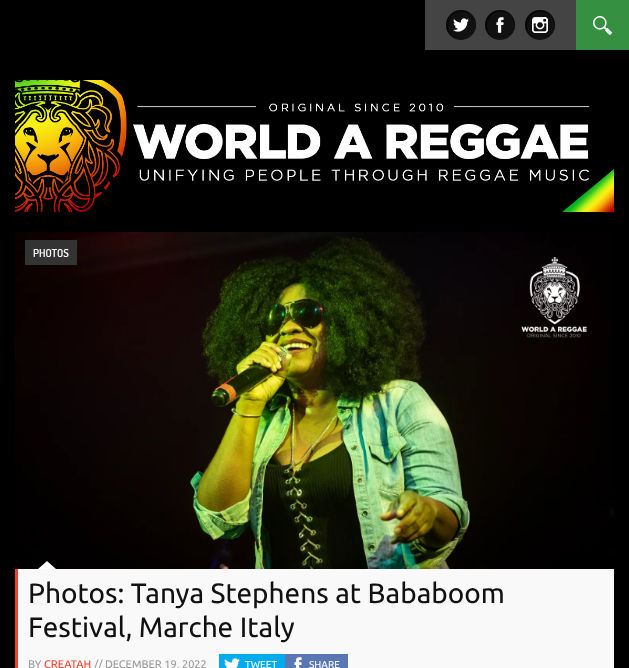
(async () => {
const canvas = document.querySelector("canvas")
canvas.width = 629
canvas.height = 668
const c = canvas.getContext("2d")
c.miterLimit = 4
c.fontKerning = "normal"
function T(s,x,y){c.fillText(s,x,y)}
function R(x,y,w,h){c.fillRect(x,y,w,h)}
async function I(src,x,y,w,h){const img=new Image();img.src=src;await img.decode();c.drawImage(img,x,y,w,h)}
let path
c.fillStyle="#000"
R(0,0,629,668)
c.fillStyle="#444"
R(425,0,151,50)
c.fillStyle="#111"
c.beginPath()
c.arc(461,25,15,0,7)
c.fill()
await I("1.png",453,18,16,14)
c.fillStyle="#00000080"
path = new Path2D("M462 12c11.5 0 15.5 11 12.5 19.5c2.5-5 2-10.5-1-15c-8.5-12-27.5-6-27.5 8.5c0 4 1.5 8 4.5 10.5c3 3 7 4.5 11 4.5c-17.5-.5-17.5-28 .5-28z")
c.fill(path)
c.fillStyle="#111"
c.beginPath()
c.arc(500,25,15,0,7)
c.fill()
await I("2.png",496,17,8,16)
c.fillStyle="#00000080"
path = new Path2D("M501 12c11.5 0 15.5 11 12.5 19.5c2.5-5 2-10.5-1-15c-8.5-12-27.5-6-27.5 8.5c0 4 1.5 8 4.5 10.5c3 3 7 4.5 11 4.5c-17.5-.5-17.5-28 .5-28z")
c.fill(path)
c.fillStyle="#111"
c.beginPath()
c.arc(540,25,15,0,7)
c.fill()
await I("3.png",532,17,16,16)
c.fillStyle="#00000080"
path = new Path2D("M541 12c11.5 0 15.5 11 12.5 19.5c2.5-5 2-10.5-1-15c-8.5-12-27.5-6-27.5 8.5c0 4 1.5 8 4.5 10.5c3 3 7 4.5 11 4.5c-17.5-.5-17.5-28 .5-28z")
c.fill(path)
c.fillStyle="#369041"
R(576,0,53,50)
await I("4.png",593,16,19,19)
await I("5.png",15,80,599,132)
await I("6.png",15,232,599,337)
c.fillStyle="#333"
R(25,240,52,25)
c.font="600 11px Dosis"
c.fillStyle="#fff"
T("PHOTOS",33,257)
c.fillStyle="#f9f9f9"
R(18,569,596,99)
c.fillStyle="#f53e2a"
path = new Path2D("M15 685v-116h3v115z")
c.fill(path)
await I("7.png",38,561,18,8)
c.font="28px Ubuntu"
c.fillStyle="#111"
T("Photos: Tanya Stephens at Bababoom",28,603)
T("Festival, Marche Italy",28,637)
c.font="11px Ubuntu"
c.fillStyle="#999"
T("BY",28,668)
c.fillStyle="#f53e2a"
T("CREATAH",44,668)
c.fillStyle="#999"
T("// DECEMBER 19, 2022",94,668)
c.fillStyle="#00acee"
R(219,654,66,14)
await I("8.png",224,658,16,10)
c.font="10px Ubuntu"
c.fillStyle="#fff"
T("TWEET",245,668)
c.fillStyle="#5977b2"
R(285,654,63,14)
await I("9.png",294,657,8,11)
c.fillStyle="#fff"
T("SHARE",309,668)
})()
